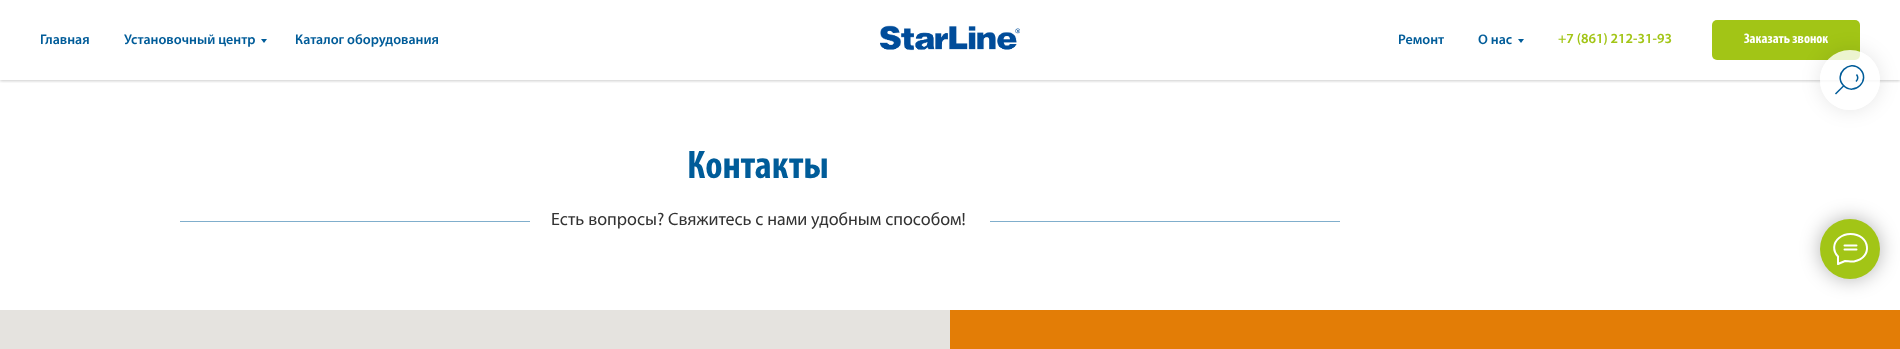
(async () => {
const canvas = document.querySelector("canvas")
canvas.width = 1900
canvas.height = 349
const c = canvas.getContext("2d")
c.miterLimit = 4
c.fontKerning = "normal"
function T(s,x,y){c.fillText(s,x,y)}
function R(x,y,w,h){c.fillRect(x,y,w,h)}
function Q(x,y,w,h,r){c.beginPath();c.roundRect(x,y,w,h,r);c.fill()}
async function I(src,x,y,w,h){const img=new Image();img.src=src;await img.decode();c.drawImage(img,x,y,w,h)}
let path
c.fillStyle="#fff"
R(0,0,1900,349)
c.save()
c.beginPath()
c.rect(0,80,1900,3)
c.clip()
c.fillStyle="#00000033"
c.filter="blur(1.5px)"
c.beginPath()
c.rect(0,1,1900,80)
c.fill()
c.filter="none"
c.restore()
c.font="600 14px Myriad"
c.fillStyle="#005c99"
T("Главная",40,44)
T("Установочный центр",124,44)
path = new Path2D("M261 39h6l-3 4z")
c.fill(path)
T("Каталог оборудования",295,44)
await I("1.png",880,25,140,26)
T("Ремонт",1398,44)
T("О нас",1478,44)
path = new Path2D("M1518 39h6l-3 4z")
c.fill(path)
c.fillStyle="#a2c516"
T("+7 (861) 212-31-93",1558,43)
Q(1712,20,148,40,5)
c.font="bold 14px Myriad"
c.fillStyle="#fff"
T("Заказать звонок",1744,43)
c.save()
path = new Path2D("M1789 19h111v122h-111zm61 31c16.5 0 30 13.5 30 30c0 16.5-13.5 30-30 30c-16.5 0-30-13.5-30-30c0-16.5 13.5-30 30-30z")
c.clip(path,"evenodd")
c.fillStyle="#0000001a"
c.filter="blur(10px)"
c.beginPath()
c.roundRect(1820,50,60,60,30)
c.fill()
c.filter="none"
c.restore()
c.fillStyle="#ffffffcc"
c.beginPath()
c.arc(1850,80,30,0,7)
c.fill()
path = new Path2D("M1843.5 86l-7.5 7.5")
c.strokeStyle="#005c99"
c.lineWidth=1.5
c.lineCap="square"
c.stroke(path)
path = new Path2D("M1860 69c11 11-5.5 27.5-16.5 16.5c-10.5-10.5 6-27 16.5-16.5zm-3.5 5.5c1.5 2 1.5 5-.5 7")
c.lineCap="butt"
c.stroke(path)
c.font="bold 40px Myriad"
c.fillStyle="#005c99"
T("Контакты",687,178)
c.fillStyle="#80aecc"
R(180,221,350,1)
c.font="18px Myriad"
c.fillStyle="#333"
T("Есть вопросы? Свяжитесь с нами удобным способом!",551,225)
c.fillStyle="#80aecc"
R(990,221,350,1)
c.fillStyle="#0000004d"
c.filter="blur(10px)"
c.beginPath()
c.roundRect(1820,219,60,60,30)
c.fill()
c.filter="none"
c.fillStyle="#a2c516"
c.beginPath()
c.arc(1850,249,30,0,7)
c.fill()
path = new Path2D("M1844.5 245.5h12m-12 4h12m-18.5 7c-5.5-5.5-5-13.5 1-18.5c3-2.5 7.5-4 11.5-4c19.5 0 23 24 3.5 27.5c-4 .5-5.5-.5-9-.5l-7 3v-7z")
c.strokeStyle="#fff"
c.lineWidth=2
c.lineCap="round"
c.lineJoin="round"
c.stroke(path)
c.fillStyle="#e37d06"
R(950,310,950,39)
c.fillStyle="#e5e3df"
R(0,310,950,39)
})()
